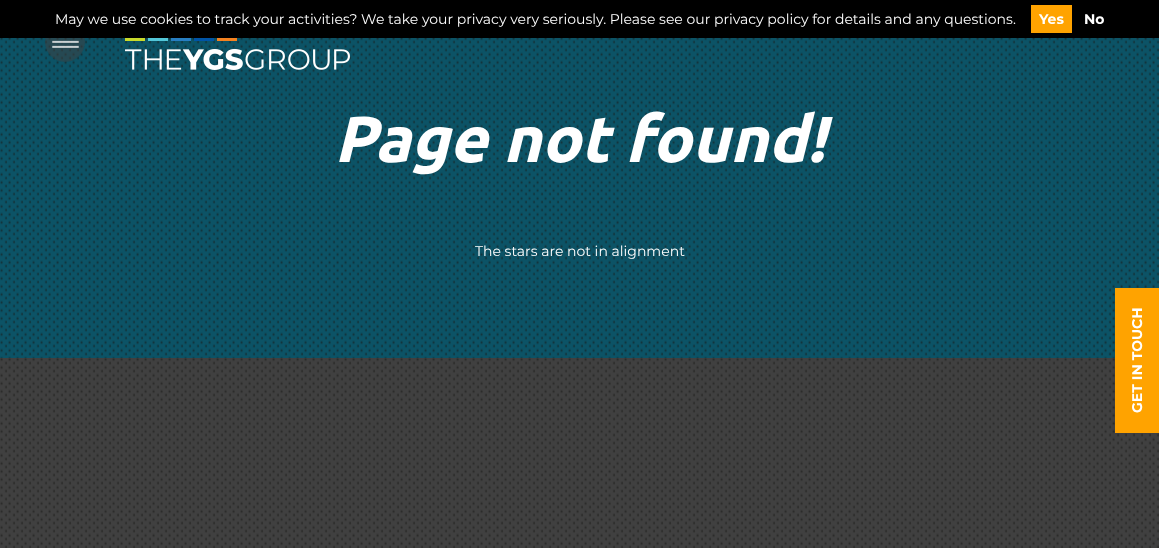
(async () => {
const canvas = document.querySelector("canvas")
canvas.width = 1159
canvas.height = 548
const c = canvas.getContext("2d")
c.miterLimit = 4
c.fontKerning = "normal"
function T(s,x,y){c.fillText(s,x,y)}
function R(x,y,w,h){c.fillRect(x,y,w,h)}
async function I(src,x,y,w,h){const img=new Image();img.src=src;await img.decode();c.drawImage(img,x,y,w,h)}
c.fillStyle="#404040"
R(0,0,1159,548)
c.fillStyle="#000"
R(0,0,1159,38)
c.font="14px Montserrat"
c.fillStyle="#fff"
T("May we use cookies to track your activities? We take your privacy very seriously. Please see our privacy policy for details and any questions.",55,24)
c.fillStyle="#ffa300"
R(1031,5,41,28)
c.font="bold 14px Montserrat"
c.fillStyle="#fff"
T("Yes",1039,24)
T("No",1084,24)
c.fillStyle="#0c5366"
R(0,38,1159,320)
await I("4.png",0,38,1159,320)
await I("1.png",45,38,40,24)
await I("2.png",125,38,225,32)
await I("3.png",0,358,1159,190)
c.font="italic bold 65px Ubuntu"
c.fillStyle="#fff"
T("Page not found!",334,162)
c.font="14px Montserrat"
T("The stars are not in alignment",475,256)
c.fillStyle="#ffa300"
R(1115,288,44,145)
c.font="bold 14px Montserrat"
c.fillStyle="#fff"
c.save()
c.translate(1142,413)
c.rotate(-90 * Math.PI / 180)
c.fillText("GET IN TOUCH",0,0)
c.restore()
})()
